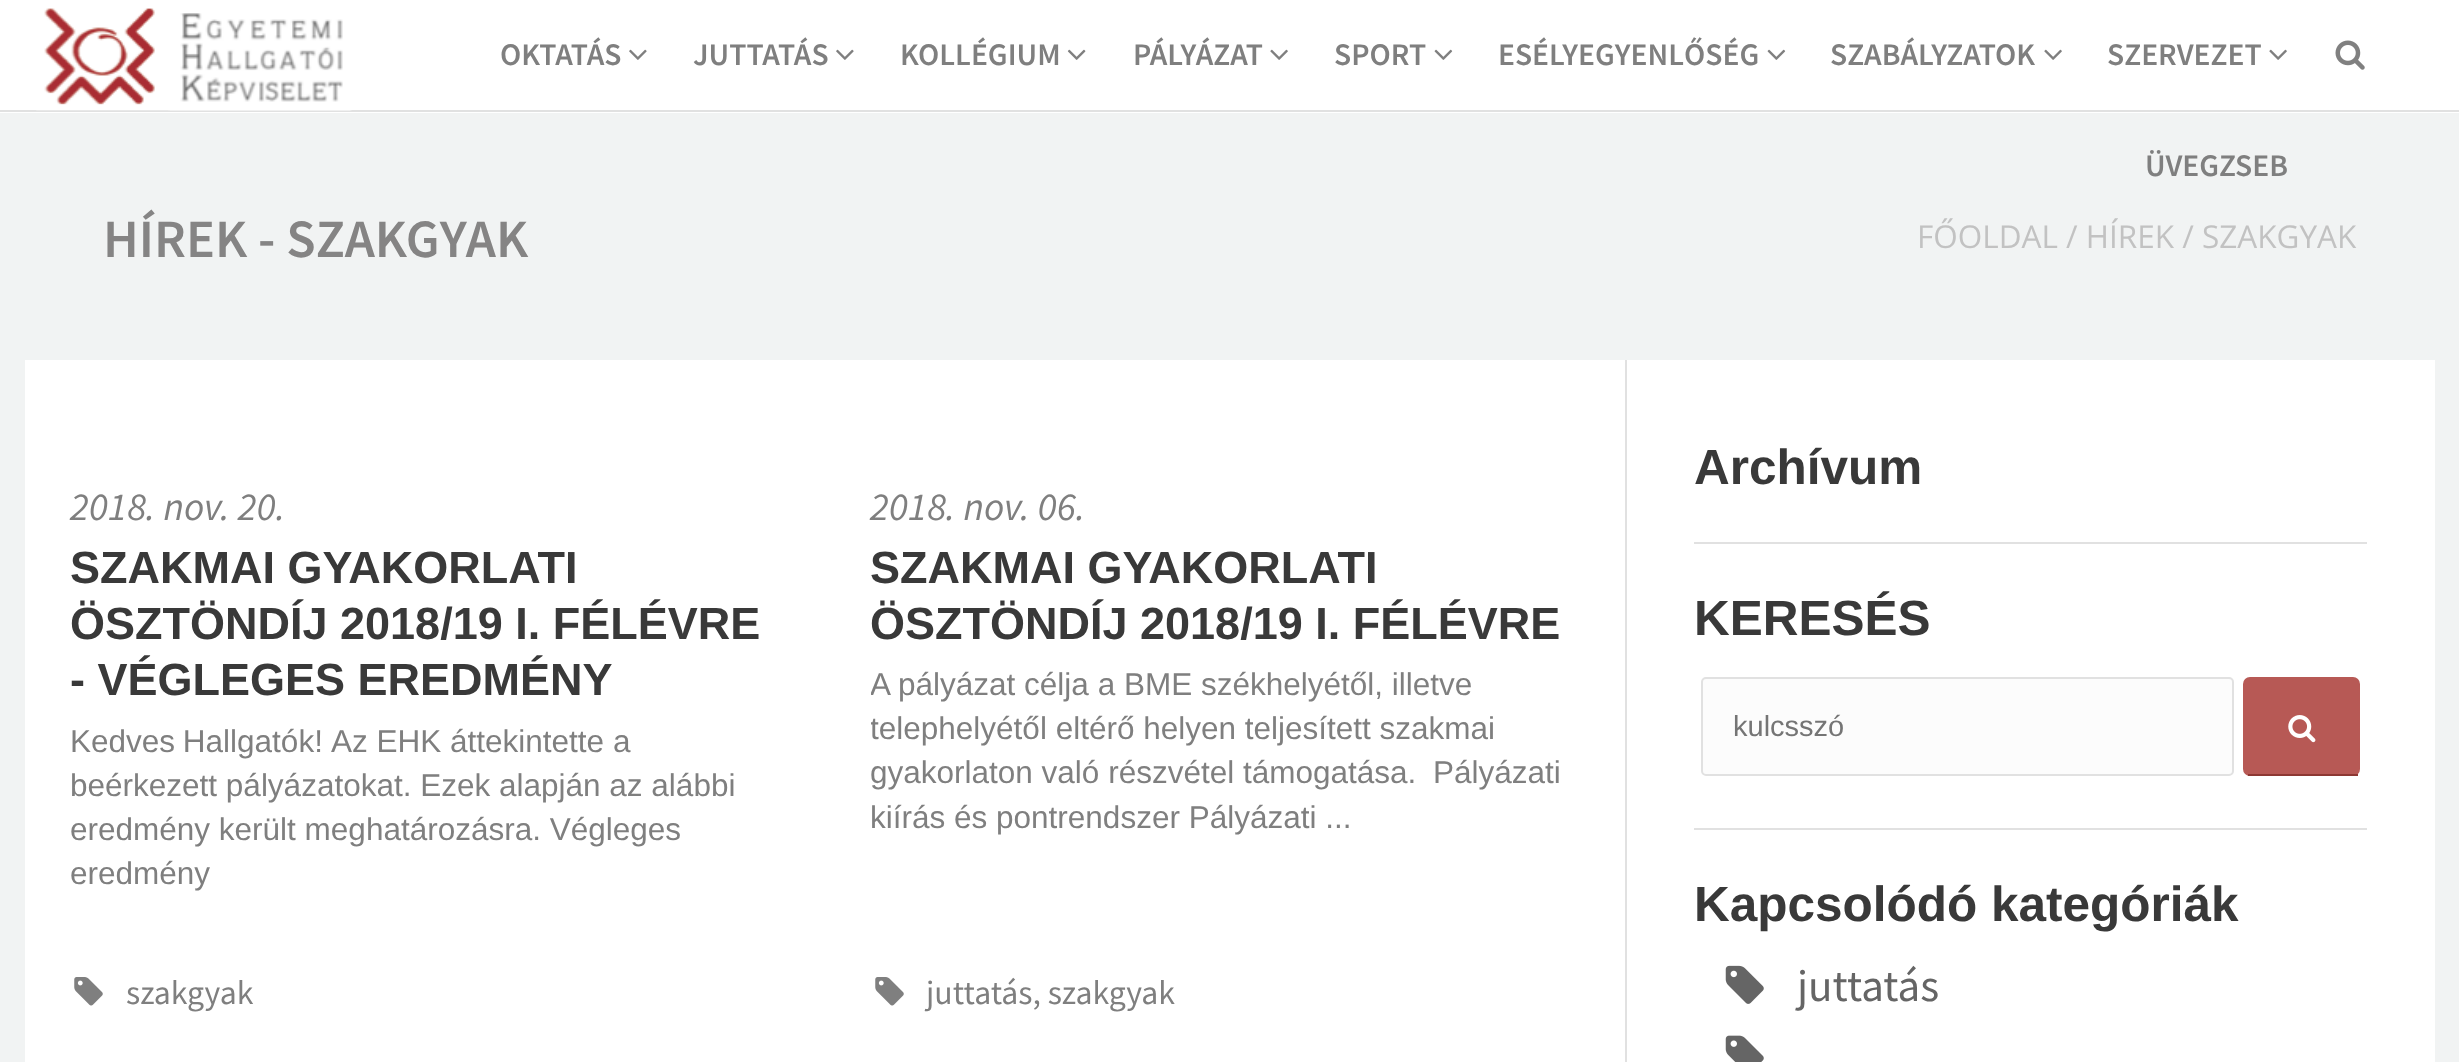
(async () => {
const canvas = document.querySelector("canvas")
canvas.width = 2459
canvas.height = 1062
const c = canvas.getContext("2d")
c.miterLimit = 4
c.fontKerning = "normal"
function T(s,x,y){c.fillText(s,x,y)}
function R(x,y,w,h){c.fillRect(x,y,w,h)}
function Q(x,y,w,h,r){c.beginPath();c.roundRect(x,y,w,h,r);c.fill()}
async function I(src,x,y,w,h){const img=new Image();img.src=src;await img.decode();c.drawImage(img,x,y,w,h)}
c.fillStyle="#f1f3f3"
R(0,0,2459,1062)
c.fillStyle="#fff"
R(0,0,2459,113)
c.fillStyle="#e1e1e1"
R(0,110,2459,2)
await I("1.png",36,8,133,103)
await I("2.png",168,13,184,98)
c.font="600 31.5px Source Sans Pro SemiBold"
c.fillStyle="#7f7f7f"
T("OKTATÁS",500,65)
await I("3.png",629,49,18,11)
T("JUTTATÁS",693,65)
await I("3.png",836,49,18,11)
T("KOLLÉGIUM",900,65)
await I("4.png",1067,49,19,11)
T("PÁLYÁZAT",1133,65)
await I("5.png",1270,49,18,11)
T("SPORT",1334,65)
await I("6.png",1434,49,19,11)
T("ESÉLYEGYENLŐSÉG",1498,65)
await I("6.png",1767,49,19,11)
T("SZABÁLYZATOK",1830,65)
await I("5.png",2044,49,18,11)
T("SZERVEZET",2107,65)
await I("5.png",2269,49,18,11)
T("ÜVEGZSEB",2145,176)
await I("7.png",2335,40,30,30)
c.font="600 54px Source Sans Pro SemiBold"
c.fillStyle="#858484"
T("HÍREK - SZAKGYAK",103,257)
c.font="31.5px Open Sans"
c.fillStyle="#c2c2c2"
T("FŐOLDAL / HÍREK / SZAKGYAK",1917,248)
c.fillStyle="#fff"
R(25,360,2410,702)
c.font="italic 39.5px Source Sans Pro"
c.fillStyle="#7f7f7f"
T("2018. nov. 20.",70,520)
c.font="bold 45px Liberation Sans"
c.fillStyle="#393939"
T("SZAKMAI GYAKORLATI",70,583)
T("ÖSZTÖNDÍJ 2018/19 I. FÉLÉVRE",70,639)
T("- VÉGLEGES EREDMÉNY",70,695)
c.wordSpacing="-1px"
c.font="31.5px Liberation Sans"
c.fillStyle="#7f7f7f"
T("Kedves Hallgatók!",70,752)
c.wordSpacing="0px"
T("Az EHK áttekintette a",331,752)
T("beérkezett pályázatokat. Ezek alapján az alábbi",70,796)
T("eredmény került meghatározásra. Végleges",70,840)
T("eredmény",70,884)
await I("8.png",74,977,29,29)
c.font="33.75px Source Sans Pro"
T("szakgyak",126,1004)
c.font="italic 39.5px Source Sans Pro"
T("2018. nov. 06.",870,520)
c.font="bold 45px Liberation Sans"
c.fillStyle="#393939"
T("SZAKMAI GYAKORLATI",870,583)
T("ÖSZTÖNDÍJ 2018/19 I. FÉLÉVRE",870,639)
c.save()
c.beginPath()
c.rect(871,540,709,405)
c.clip()
c.font="31.5px Liberation Sans"
c.fillStyle="#7f7f7f"
T("A pályázat célja a BME székhelyétől, illetve",870,695)
T("telephelyétől eltérő helyen teljesített szakmai",870,739)
c.restore()
c.font="31.5px Liberation Sans"
c.fillStyle="#7f7f7f"
T("gyakorlaton való részvétel támogatása.",870,783)
T("Pályázati",1433,783)
T("kiírás és pontrendszer Pályázati ...",870,828)
await I("8.png",875,977,29,29)
c.font="33.75px Source Sans Pro"
T("juttatás, szakgyak",926,1004)
c.fillStyle="#e1e1e1"
R(1625,360,2,702)
c.font="bold 49.5px Liberation Sans"
c.fillStyle="#393939"
T("Archívum",1694,484)
c.fillStyle="#e1e1e1"
R(1694,542,673,2)
c.fillStyle="#393939"
T("KERESÉS",1694,635)
c.fillStyle="#fcfcfc"
c.beginPath()
c.roundRect(1702,678,531,97,4)
c.fill()
c.strokeStyle="#e1e1e1"
c.lineWidth=2
c.stroke()
c.font="29px Liberation Sans"
c.fillStyle="#757575"
T("kulcsszó",1733,736)
c.fillStyle="#b75955"
Q(2243,677,117,99,7)
c.fillStyle="#8d3833"
R(2248,774,110,2)
await I("9.png",2288,715,28,28)
c.fillStyle="#e1e1e1"
R(1694,828,673,2)
c.font="bold 49.5px Liberation Sans"
c.fillStyle="#393939"
T("Kapcsolódó kategóriák",1694,921)
await I("10.png",1725,965,39,39)
c.font="45px Source Sans Pro"
c.fillStyle="#656565"
T("juttatás",1797,1001)
await I("11.png",1725,1035,39,27)
})()
